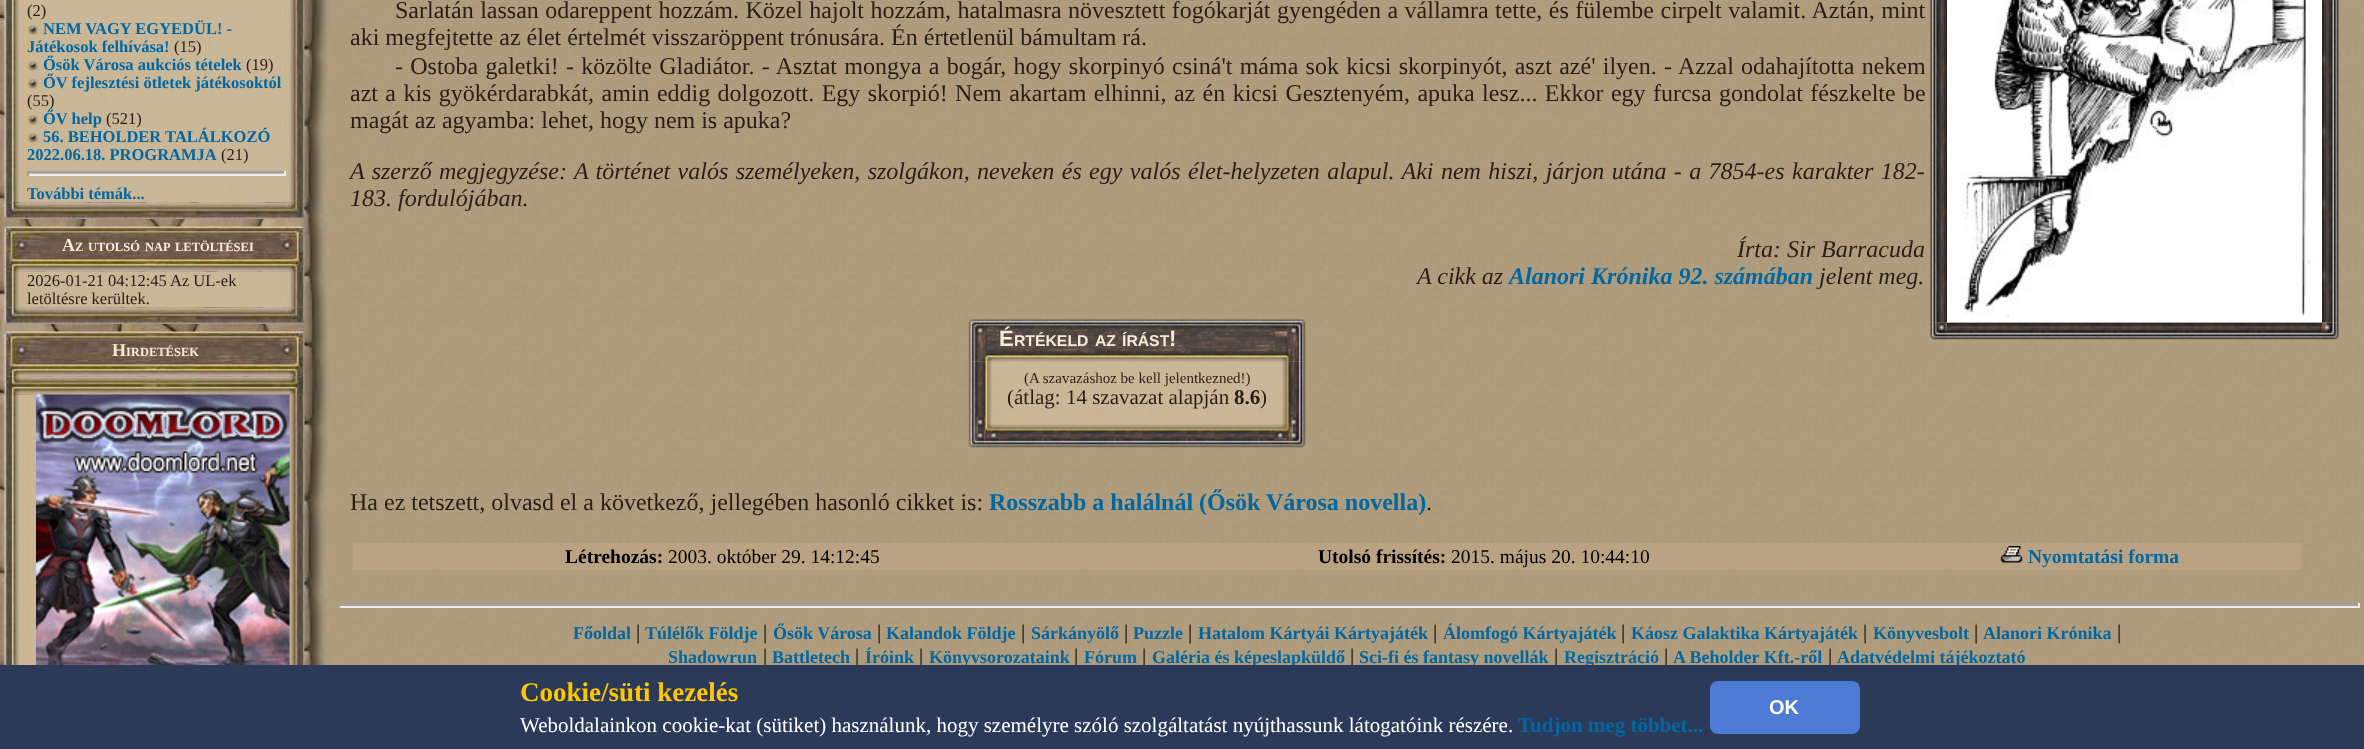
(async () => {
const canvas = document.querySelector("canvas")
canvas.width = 2364
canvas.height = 749
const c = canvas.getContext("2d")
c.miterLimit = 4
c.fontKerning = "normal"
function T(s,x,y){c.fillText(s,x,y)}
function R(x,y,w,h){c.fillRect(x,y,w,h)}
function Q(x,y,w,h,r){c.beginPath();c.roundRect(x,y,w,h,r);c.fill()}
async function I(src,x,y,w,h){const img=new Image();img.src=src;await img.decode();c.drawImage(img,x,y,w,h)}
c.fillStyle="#fff"
R(0,0,2364,749)
await I("1.png",330,0,2034,665)
await I("2.png",0,0,330,665)
await I("3.png",4,0,301,203)
c.font="16.5px Liberation Serif"
c.fillStyle="#291d17"
T("(2)",27,16)
await I("4.png",28,25,10,10)
c.font="bold 16.5px Liberation Serif"
c.fillStyle="#0067a3"
T("NEM VAGY EGYEDÜL! -",43,34)
T("Játékosok felhívása!",27,52)
c.font="16.5px Liberation Serif"
c.fillStyle="#291d17"
T("(15)",174,52)
await I("5.png",28,61,10,10)
c.font="bold 16.5px Liberation Serif"
c.fillStyle="#0067a3"
T("Ősök Városa aukciós tételek",43,70)
c.font="16.5px Liberation Serif"
c.fillStyle="#291d17"
T("(19)",246,70)
await I("6.png",28,79,10,10)
c.font="bold 16.5px Liberation Serif"
c.fillStyle="#0067a3"
T("ŐV fejlesztési ötletek játékosoktól",43,88)
c.font="16.5px Liberation Serif"
c.fillStyle="#291d17"
T("(55)",27,106)
await I("7.png",28,115,10,10)
c.font="bold 16.5px Liberation Serif"
c.fillStyle="#0067a3"
T("ŐV help",43,124)
c.font="16.5px Liberation Serif"
c.fillStyle="#291d17"
T("(521)",106,124)
await I("6.png",28,133,10,10)
c.font="bold 16.5px Liberation Serif"
c.fillStyle="#0067a3"
T("56. BEHOLDER TALÁLKOZÓ",43,142)
T("2022.06.18. PROGRAMJA",27,160)
c.font="16.5px Liberation Serif"
c.fillStyle="#291d17"
T("(21)",221,160)
c.fillStyle="#9f9f9f"
R(27,171,258,2)
c.fillStyle="#eee"
R(284,171,2,5)
R(27,174,258,2)
c.fillStyle="#9f9f9f"
R(27,171,2,5)
c.font="bold 16.5px Liberation Serif"
c.fillStyle="#0067a3"
T("További témák...",27,199)
await I("8.png",4,202,301,17)
await I("9.png",4,226,301,46)
c.font="bold 18px Liberation Serif"
c.fillStyle="#f7ebd6"
T("A",62,251)
c.font="bold 12.5px Liberation Serif"
T("Z",75,251)
T("UTOLSÓ",88,251)
T("NAP",145,251)
T("LETÖLTÉSEI",175,251)
await I("10.png",4,271,301,37)
c.font="16.5px Liberation Serif"
c.fillStyle="#291d17"
T("2026-01-21 04:12:45 Az UL-ek",27,286)
T("letöltésre kerültek.",27,304)
await I("11.png",4,307,301,17)
await I("12.png",4,331,301,46)
c.font="bold 18px Liberation Serif"
c.fillStyle="#f7ebd6"
T("H",112,356)
c.font="bold 12.5px Liberation Serif"
T("IRDETÉSEK",126,356)
await I("13.png",4,376,301,19)
await I("14.png",4,394,301,271)
await I("15.png",36,394,254,271)
c.wordSpacing="0.5px"
c.font="24px Liberation Serif"
c.fillStyle="#291d17"
T("Sarlatán lassan odareppent hozzám. Közel hajolt hozzám, hatalmasra növesztett fogókarját gyengéden a vállamra tette, és fülembe cirpelt valamit. Aztán, mint",395,18)
c.wordSpacing="0px"
T("aki megfejtette az élet értelmét visszaröppent trónusára. Én értetlenül bámultam rá.",350,45)
await I("16.png",1930,0,17,323)
await I("20.png",1947,322,375,18)
await I("17.png",1947,0,375,323)
await I("18.png",2322,0,17,323)
await I("19.png",1930,322,17,18)
await I("21.png",2322,322,17,18)
c.wordSpacing="1.25px"
T("- Ostoba galetki! - közölte Gladiátor. - Asztat mongya a bogár, hogy skorpinyó csiná't máma sok kicsi skorpinyót, aszt azé' ilyen. - Azzal odahajította nekem",395,74)
c.wordSpacing="1.4px"
T("azt a kis gyökérdarabkát, amin eddig dolgozott. Egy skorpió! Nem akartam elhinni, az én kicsi Gesztenyém, apuka lesz... Ekkor egy furcsa gondolat fészkelte be",350,101)
c.wordSpacing="0px"
T("magát az agyamba: lehet, hogy nem is apuka?",350,128)
c.wordSpacing="1.4px"
c.font="italic 24px Liberation Serif"
T("A szerző megjegyzése: A történet valós személyeken, szolgákon, neveken és egy valós élet-helyzeten alapul. Aki nem hiszi, járjon utána - a 7854-es karakter 182-",350,179)
c.wordSpacing="0px"
T("183. fordulójában.",350,206)
T("Írta: Sir Barracuda",1737,257)
T("A cikk az",1417,284)
c.font="italic bold 24px Liberation Serif"
c.fillStyle="#0067a3"
T("Alanori Krónika 92. számában",1509,284)
c.font="italic 24px Liberation Serif"
c.fillStyle="#291d17"
T("jelent meg.",1819,284)
await I("22.png",968,319,31,43)
await I("23.png",999,319,276,43)
c.font="bold 22px Liberation Sans"
c.fillStyle="#f7ebd6"
T("É",999,346)
c.font="bold 15.75px Liberation Sans"
T("RTÉKELD",1014,346)
T("AZ",1095,346)
T("ÍRÁST",1122,346)
c.font="bold 22px Liberation Sans"
T("!",1169,346)
await I("24.png",1275,319,31,43)
await I("25.png",968,361,31,56)
await I("26.png",999,361,276,56)
c.font="15px Liberation Serif"
c.fillStyle="#291d17"
T("(A szavazáshoz be kell jelentkezned!)",1024,383)
c.font="21px Liberation Serif"
T("(átlag: 14 szavazat alapján",1007,404)
c.font="bold 21px Liberation Serif"
T("8.6",1234,404)
c.font="21px Liberation Serif"
T(")",1260,404)
await I("27.png",1275,361,31,56)
await I("28.png",968,417,31,31)
await I("29.png",999,417,276,31)
await I("30.png",1275,417,31,31)
c.font="24px Liberation Serif"
T("Ha ez tetszett, olvasd el a következő, jellegében hasonló cikket is:",350,510)
c.font="bold 24px Liberation Serif"
c.fillStyle="#0067a3"
T("Rosszabb a halálnál (Ősök Városa novella)",989,510)
c.font="24px Liberation Serif"
c.fillStyle="#291d17"
T(".",1426,510)
c.fillStyle="#b9a383"
R(353,543,1948,27)
c.font="bold 19.5px Liberation Serif"
c.fillStyle="#000"
T("Létrehozás:",565,563)
c.font="19.5px Liberation Serif"
T("2003. október 29. 14:12:45",668,563)
c.font="bold 19.5px Liberation Serif"
T("Utolsó frissítés:",1318,563)
c.font="19.5px Liberation Serif"
T("2015. május 20. 10:44:10",1451,563)
await I("31.png",2000,546,23,17)
c.font="bold 19.5px Liberation Serif"
c.fillStyle="#0067a3"
T("Nyomtatási forma",2028,563)
c.fillStyle="#9f9f9f"
R(338,603,2022,2)
c.fillStyle="#eee"
R(2358,603,2,5)
R(338,606,2022,2)
c.fillStyle="#9f9f9f"
R(338,603,2,5)
c.font="bold 18px Liberation Serif"
c.fillStyle="#0067a3"
T("Főoldal",573,639)
c.font="21px Liberation Serif"
c.fillStyle="#000"
T("|",636,639)
c.font="bold 18px Liberation Serif"
c.fillStyle="#0067a3"
T("Túlélők Földje",645,639)
c.font="21px Liberation Serif"
c.fillStyle="#000"
T("|",763,639)
c.font="bold 18px Liberation Serif"
c.fillStyle="#0067a3"
T("Ősök Városa",773,639)
c.font="21px Liberation Serif"
c.fillStyle="#000"
T("|",877,639)
c.font="bold 18px Liberation Serif"
c.fillStyle="#0067a3"
T("Kalandok Földje",886,639)
c.font="21px Liberation Serif"
c.fillStyle="#000"
T("|",1021,639)
c.font="bold 18px Liberation Serif"
c.fillStyle="#0067a3"
T("Sárkányölő",1031,639)
c.font="21px Liberation Serif"
c.fillStyle="#000"
T("|",1124,639)
c.font="bold 18px Liberation Serif"
c.fillStyle="#0067a3"
T("Puzzle",1133,639)
c.font="21px Liberation Serif"
c.fillStyle="#000"
T("|",1188,639)
c.font="bold 18px Liberation Serif"
c.fillStyle="#0067a3"
T("Hatalom Kártyái Kártyajáték",1198,639)
c.font="21px Liberation Serif"
c.fillStyle="#000"
T("|",1433,639)
c.font="bold 18px Liberation Serif"
c.fillStyle="#0067a3"
T("Álomfogó Kártyajáték",1443,639)
c.font="21px Liberation Serif"
c.fillStyle="#000"
T("|",1621,639)
c.font="bold 18px Liberation Serif"
c.fillStyle="#0067a3"
T("Káosz Galaktika Kártyajáték",1631,639)
c.font="21px Liberation Serif"
c.fillStyle="#000"
T("|",1863,639)
c.font="bold 18px Liberation Serif"
c.fillStyle="#0067a3"
T("Könyvesbolt",1873,639)
c.font="21px Liberation Serif"
c.fillStyle="#000"
T("|",1974,639)
c.font="bold 18px Liberation Serif"
c.fillStyle="#0067a3"
T("Alanori Krónika",1983,639)
c.font="21px Liberation Serif"
c.fillStyle="#000"
T("|",2117,639)
c.font="bold 18px Liberation Serif"
c.fillStyle="#0067a3"
T("Shadowrun",668,663)
c.font="21px Liberation Serif"
c.fillStyle="#000"
T("|",763,663)
c.font="bold 18px Liberation Serif"
c.fillStyle="#0067a3"
T("Battletech",772,663)
c.font="21px Liberation Serif"
c.fillStyle="#000"
T("|",855,663)
c.font="bold 18px Liberation Serif"
c.fillStyle="#0067a3"
T("Íróink",865,663)
c.font="21px Liberation Serif"
c.fillStyle="#000"
T("|",919,663)
c.font="bold 18px Liberation Serif"
c.fillStyle="#0067a3"
T("Könyvsorozataink",929,663)
c.font="21px Liberation Serif"
c.fillStyle="#000"
T("|",1074,663)
c.font="bold 18px Liberation Serif"
c.fillStyle="#0067a3"
T("Fórum",1084,663)
c.font="21px Liberation Serif"
c.fillStyle="#000"
T("|",1142,663)
c.font="bold 18px Liberation Serif"
c.fillStyle="#0067a3"
T("Galéria és képeslapküldő",1152,663)
c.font="21px Liberation Serif"
c.fillStyle="#000"
T("|",1350,663)
c.font="bold 18px Liberation Serif"
c.fillStyle="#0067a3"
T("Sci-fi és fantasy novellák",1359,663)
c.font="21px Liberation Serif"
c.fillStyle="#000"
T("|",1554,663)
c.font="bold 18px Liberation Serif"
c.fillStyle="#0067a3"
T("Regisztráció",1564,663)
c.font="21px Liberation Serif"
c.fillStyle="#000"
T("|",1664,663)
c.font="bold 18px Liberation Serif"
c.fillStyle="#0067a3"
T("A Beholder Kft.-ről",1673,663)
c.font="21px Liberation Serif"
c.fillStyle="#000"
T("|",1828,663)
c.font="bold 18px Liberation Serif"
c.fillStyle="#0067a3"
T("Adatvédelmi tájékoztató",1837,663)
c.fillStyle="#2c3a5a"
R(0,665,2364,84)
c.font="bold 27px Liberation Serif"
c.fillStyle="#ffc700"
T("Cookie/süti kezelés",520,701)
c.fillStyle="#4d7bd6"
Q(1710,681,150,53,8)
c.font="bold 20px Liberation Sans"
c.fillStyle="#fff"
T("OK",1769,714)
c.font="21px Liberation Serif"
T("Weboldalainkon cookie-kat (sütiket) használunk, hogy személyre szóló szolgáltatást nyújthassunk látogatóink részére.",520,732)
c.font="bold 21px Liberation Serif"
c.fillStyle="#0067a3"
T("Tudjon meg többet...",1518,732)
})()
